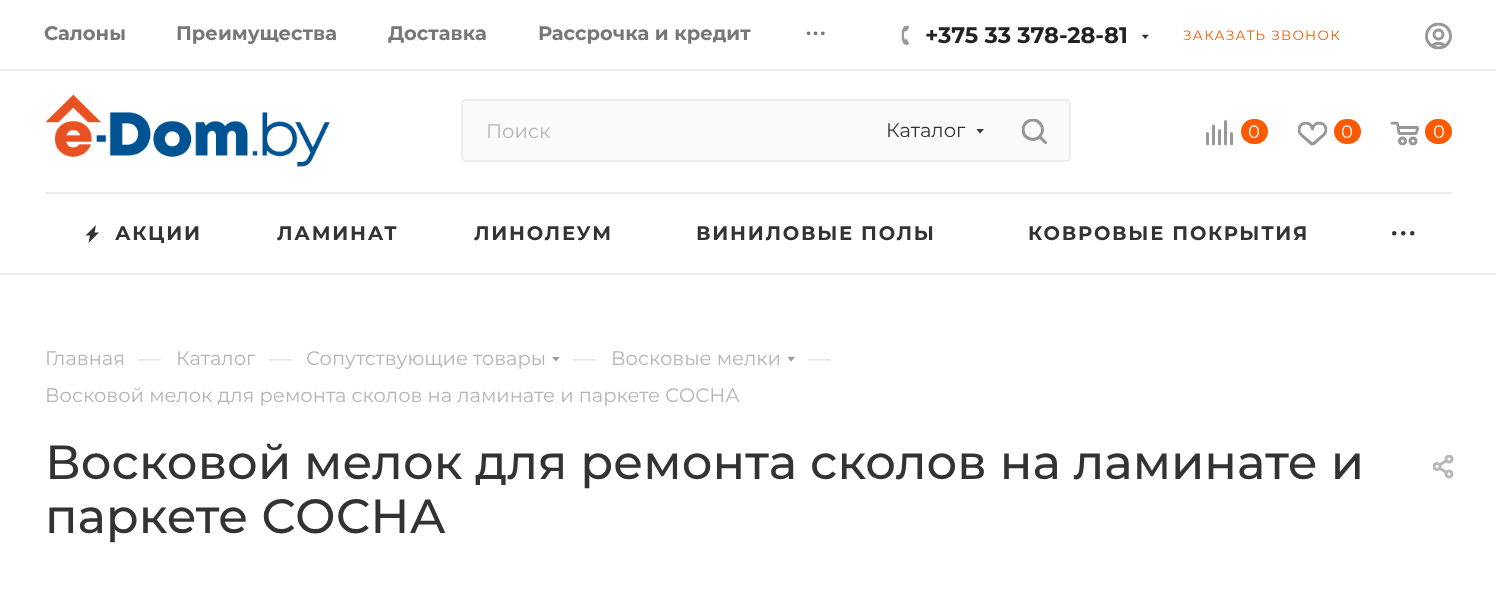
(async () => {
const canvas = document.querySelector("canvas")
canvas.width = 1496
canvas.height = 595
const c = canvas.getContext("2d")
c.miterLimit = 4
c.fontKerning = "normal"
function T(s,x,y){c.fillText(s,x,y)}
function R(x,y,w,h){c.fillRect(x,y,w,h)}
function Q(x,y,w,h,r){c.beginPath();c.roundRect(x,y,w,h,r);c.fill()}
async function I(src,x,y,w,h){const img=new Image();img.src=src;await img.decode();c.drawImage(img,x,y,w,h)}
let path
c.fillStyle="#fff"
R(0,0,1496,595)
c.fillStyle="#ececec"
R(0,69,1496,2)
c.font="bold 19.5px Montserrat"
c.fillStyle="#777"
T("Салоны",44,40)
T("Преимущества",176,40)
T("Доставка",388,40)
T("Рассрочка и кредит",538,40)
c.letterSpacing="2px"
T("...",806,35)
await I("1.png",901,25,8,20)
c.letterSpacing="0px"
c.font="bold 22.5px Montserrat"
c.fillStyle="#222"
T("+375 33 378-28-81",925,43)
await I("2.png",1141,34,8,5)
c.letterSpacing="1.25px"
c.font="13.5px Montserrat"
c.fillStyle="#ff5a00"
T("ЗАКАЗАТЬ ЗВОНОК",1183,40)
await I("3.png",1425,22,27,28)
await I("4.png",45,94,285,73)
c.fillStyle="#fafafa"
c.beginPath()
c.roundRect(462,100,608,61,4)
c.fill()
c.strokeStyle="#ececec"
c.lineWidth=2
c.stroke()
c.letterSpacing="0px"
c.font="19.5px Montserrat"
c.fillStyle="#b6b5b5"
T("Поиск",486,138)
c.fillStyle="#333"
T("Каталог",886,137)
path = new Path2D("M976.5 129h7.5l-4 4.5z")
c.fill(path,"evenodd")
await I("5.png",1021,118,26,26)
await I("6.png",1206,120,27,26)
c.fillStyle="#ff5a00"
Q(1241,119,27,25,12.5)
c.font="18px Montserrat"
c.fillStyle="#fff"
T("0",1248,138)
await I("7.png",1297,121,31,25)
c.fillStyle="#ff5a00"
Q(1334,119,27,25,12.5)
c.fillStyle="#fff"
T("0",1341,138)
await I("8.png",1390,121,29,25)
c.fillStyle="#ff5a00"
Q(1425,119,27,25,12.5)
c.fillStyle="#fff"
T("0",1433,138)
c.fillStyle="#ececec"
R(0,273,1496,2)
R(45,192,1407,2)
c.fillStyle="#333"
path = new Path2D("M96 225l-10.5 10.5h4.5l-1.5 7.5l10.5-10.5h-4.5z")
c.fill(path,"evenodd")
c.letterSpacing="1.75px"
c.font="bold 19.5px Montserrat"
T("АКЦИИ",115,240)
T("ЛАМИНАТ",277,240)
T("ЛИНОЛЕУМ",474,240)
T("ВИНИЛОВЫЕ ПОЛЫ",696,240)
T("КОВРОВЫЕ ПОКРЫТИЯ",1028,240)
await I("9.png",1392,231,23,5)
c.letterSpacing="0px"
c.font="19.5px Montserrat"
c.fillStyle="#b6b5b5"
T("Главная",45,365)
c.font="22.5px Montserrat"
c.fillStyle="#ddd"
T("—",138,366)
c.font="19.5px Montserrat"
c.fillStyle="#b6b5b5"
T("Каталог",176,365)
c.font="22.5px Montserrat"
c.fillStyle="#ddd"
T("—",269,366)
c.font="19.5px Montserrat"
c.fillStyle="#b6b5b5"
T("Сопутствующие товары",306,365)
c.fillStyle="#999"
path = new Path2D("M552 357h7.5l-3.5 4.5z")
c.fill(path,"evenodd")
c.font="22.5px Montserrat"
c.fillStyle="#ddd"
T("—",573,366)
c.font="19.5px Montserrat"
c.fillStyle="#b6b5b5"
T("Восковые мелки",611,365)
c.fillStyle="#999"
path = new Path2D("M787.5 357h7.5l-4 4.5z")
c.fill(path,"evenodd")
c.font="22.5px Montserrat"
c.fillStyle="#ddd"
T("—",808,366)
c.font="19.5px Montserrat"
c.fillStyle="#b6b5b5"
T("Восковой мелок для ремонта сколов на ламинате и паркете СОСНА",45,402)
c.font="500 48px Montserrat"
c.fillStyle="#333"
T("Восковой мелок для ремонта сколов на ламинате и",45,479)
T("паркете СОСНА",45,533)
await I("10.png",1433,455,21,24)
})()
